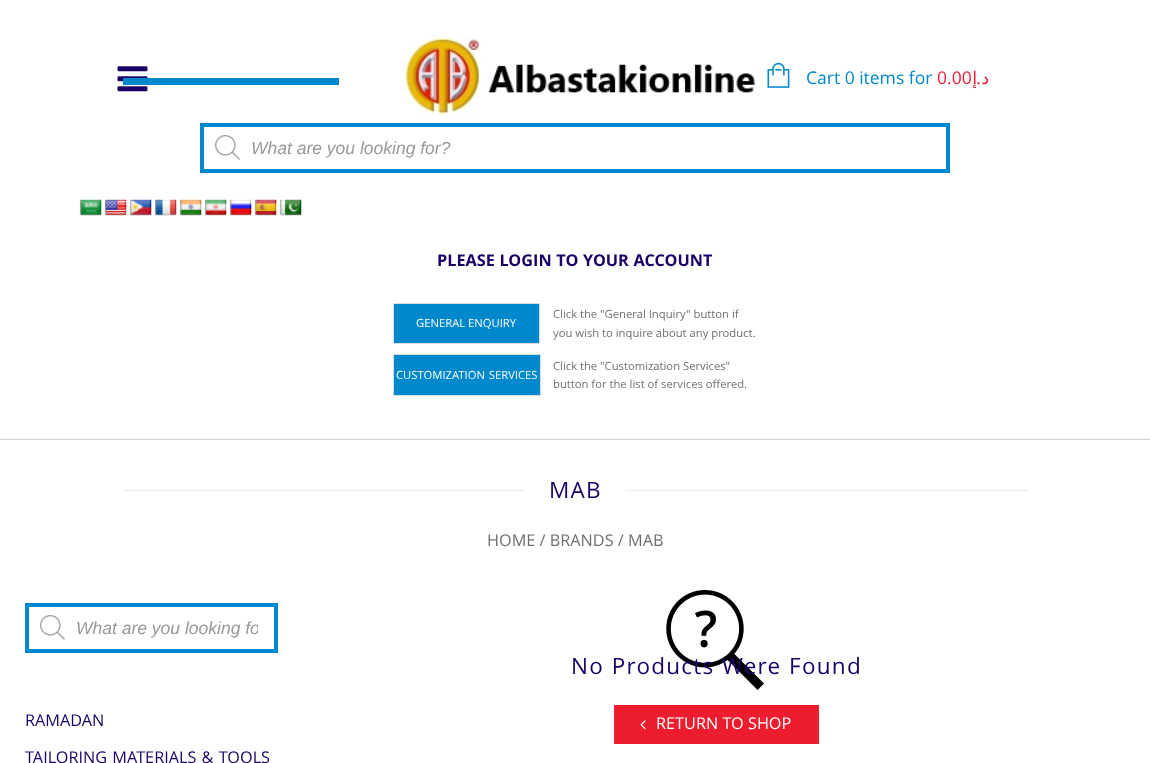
(async () => {
const canvas = document.querySelector("canvas")
canvas.width = 1150
canvas.height = 763
const c = canvas.getContext("2d")
c.miterLimit = 4
c.fontKerning = "normal"
function T(s,x,y){c.fillText(s,x,y)}
function R(x,y,w,h){c.fillRect(x,y,w,h)}
async function I(src,x,y,w,h){const img=new Image();img.src=src;await img.decode();c.drawImage(img,x,y,w,h)}
c.fillStyle="#fff"
R(0,0,1150,763)
c.fillStyle="#d0d0d0"
R(0,439,1150,1)
await I("1.png",117,66,31,26)
await I("2.png",404,37,352,79)
await I("3.png",767,62,23,26)
c.font="17.5px Open Sans"
c.fillStyle="#08c"
T("Cart 0 items for",806,84)
c.fillStyle="#ed1c2e"
T("0.00",937,84)
c.direction="rtl"
c.font="17.5px DejaVu Sans"
T("إ",977,84)
c.font="17.5px Open Sans"
T(".",981,84)
c.font="17.5px DejaVu Sans"
T("د",989,84)
c.fillStyle="#08c"
R(123,78,216,7)
await I("4.png",215,135,25,25)
c.strokeStyle="#08c"
c.lineWidth=4
c.strokeRect(202,125,746,46)
c.direction="ltr"
c.font="italic 17.5px Liberation Sans"
c.fillStyle="#999"
T("What are you looking for?",251,154)
await I("5.png",79,199,23,17)
await I("6.png",104,199,23,17)
await I("7.png",129,199,23,17)
await I("8.png",154,199,23,17)
await I("9.png",179,199,23,17)
await I("10.png",204,199,23,17)
await I("11.png",229,199,23,17)
await I("12.png",254,199,23,17)
await I("13.png",279,199,23,17)
c.wordSpacing="0.5px"
c.font="bold 16.25px Open Sans"
c.fillStyle="#1b0166"
T("PLEASE LOGIN TO YOUR ACCOUNT",437,266)
c.fillStyle="#08c"
c.beginPath()
c.rect(393.5,303.5,146,40)
c.fill()
c.strokeStyle="#ddd"
c.lineWidth=1
c.stroke()
c.wordSpacing="0px"
c.font="11.25px Open Sans"
c.fillStyle="#fff"
T("GENERAL ENQUIRY",416,327)
c.fillStyle="#6f6f6f"
T("Click the \"General Inquiry\" button if",553,318)
T("you wish to inquire about any product.",553,337)
c.fillStyle="#08c"
c.beginPath()
c.rect(393.5,354.5,147,41)
c.fill()
c.stroke()
c.wordSpacing="1px"
c.fillStyle="#fff"
T("CUSTOMIZATION SERVICES",396,379)
c.wordSpacing="0px"
c.fillStyle="#6f6f6f"
T("Click the \"Customization Services\"",553,370)
T("button for the list of services offered.",553,388)
c.fillStyle="#ebebeb"
R(123,490,905,1)
c.fillStyle="#fff"
R(524,490,102,1)
c.letterSpacing="1.25px"
c.font="22.5px Open Sans"
c.fillStyle="#1b0166"
T("MAB",549,498)
c.letterSpacing="0px"
c.font="16.25px Open Sans"
c.fillStyle="#6f6f6f"
T("HOME / BRANDS / MAB",487,546)
await I("4.png",40,615,25,25)
c.strokeStyle="#08c"
c.lineWidth=4
c.strokeRect(27,605,249,46)
c.save()
c.beginPath()
c.rect(76,618,182,20)
c.clip()
c.font="italic 17.5px Liberation Sans"
c.fillStyle="#999"
T("What are you looking fo",76,634)
c.restore()
c.fillStyle="#1b0166"
T("RAMADAN",25,726)
c.wordSpacing="1px"
T("TAILORING MATERIALS & TOOLS",25,763)
await I("14.png",666,590,98,100)
c.letterSpacing="1.25px"
c.wordSpacing="0.5px"
c.font="22.5px Open Sans"
T("No Products Were Found",571,674)
c.fillStyle="#ed1c2e"
R(614,705,205,39)
await I("15.png",640,720,6,10)
c.letterSpacing="0px"
c.wordSpacing="0px"
c.font="16.25px Open Sans"
c.fillStyle="#fff"
T("RETURN TO SHOP",656,729)
})()
